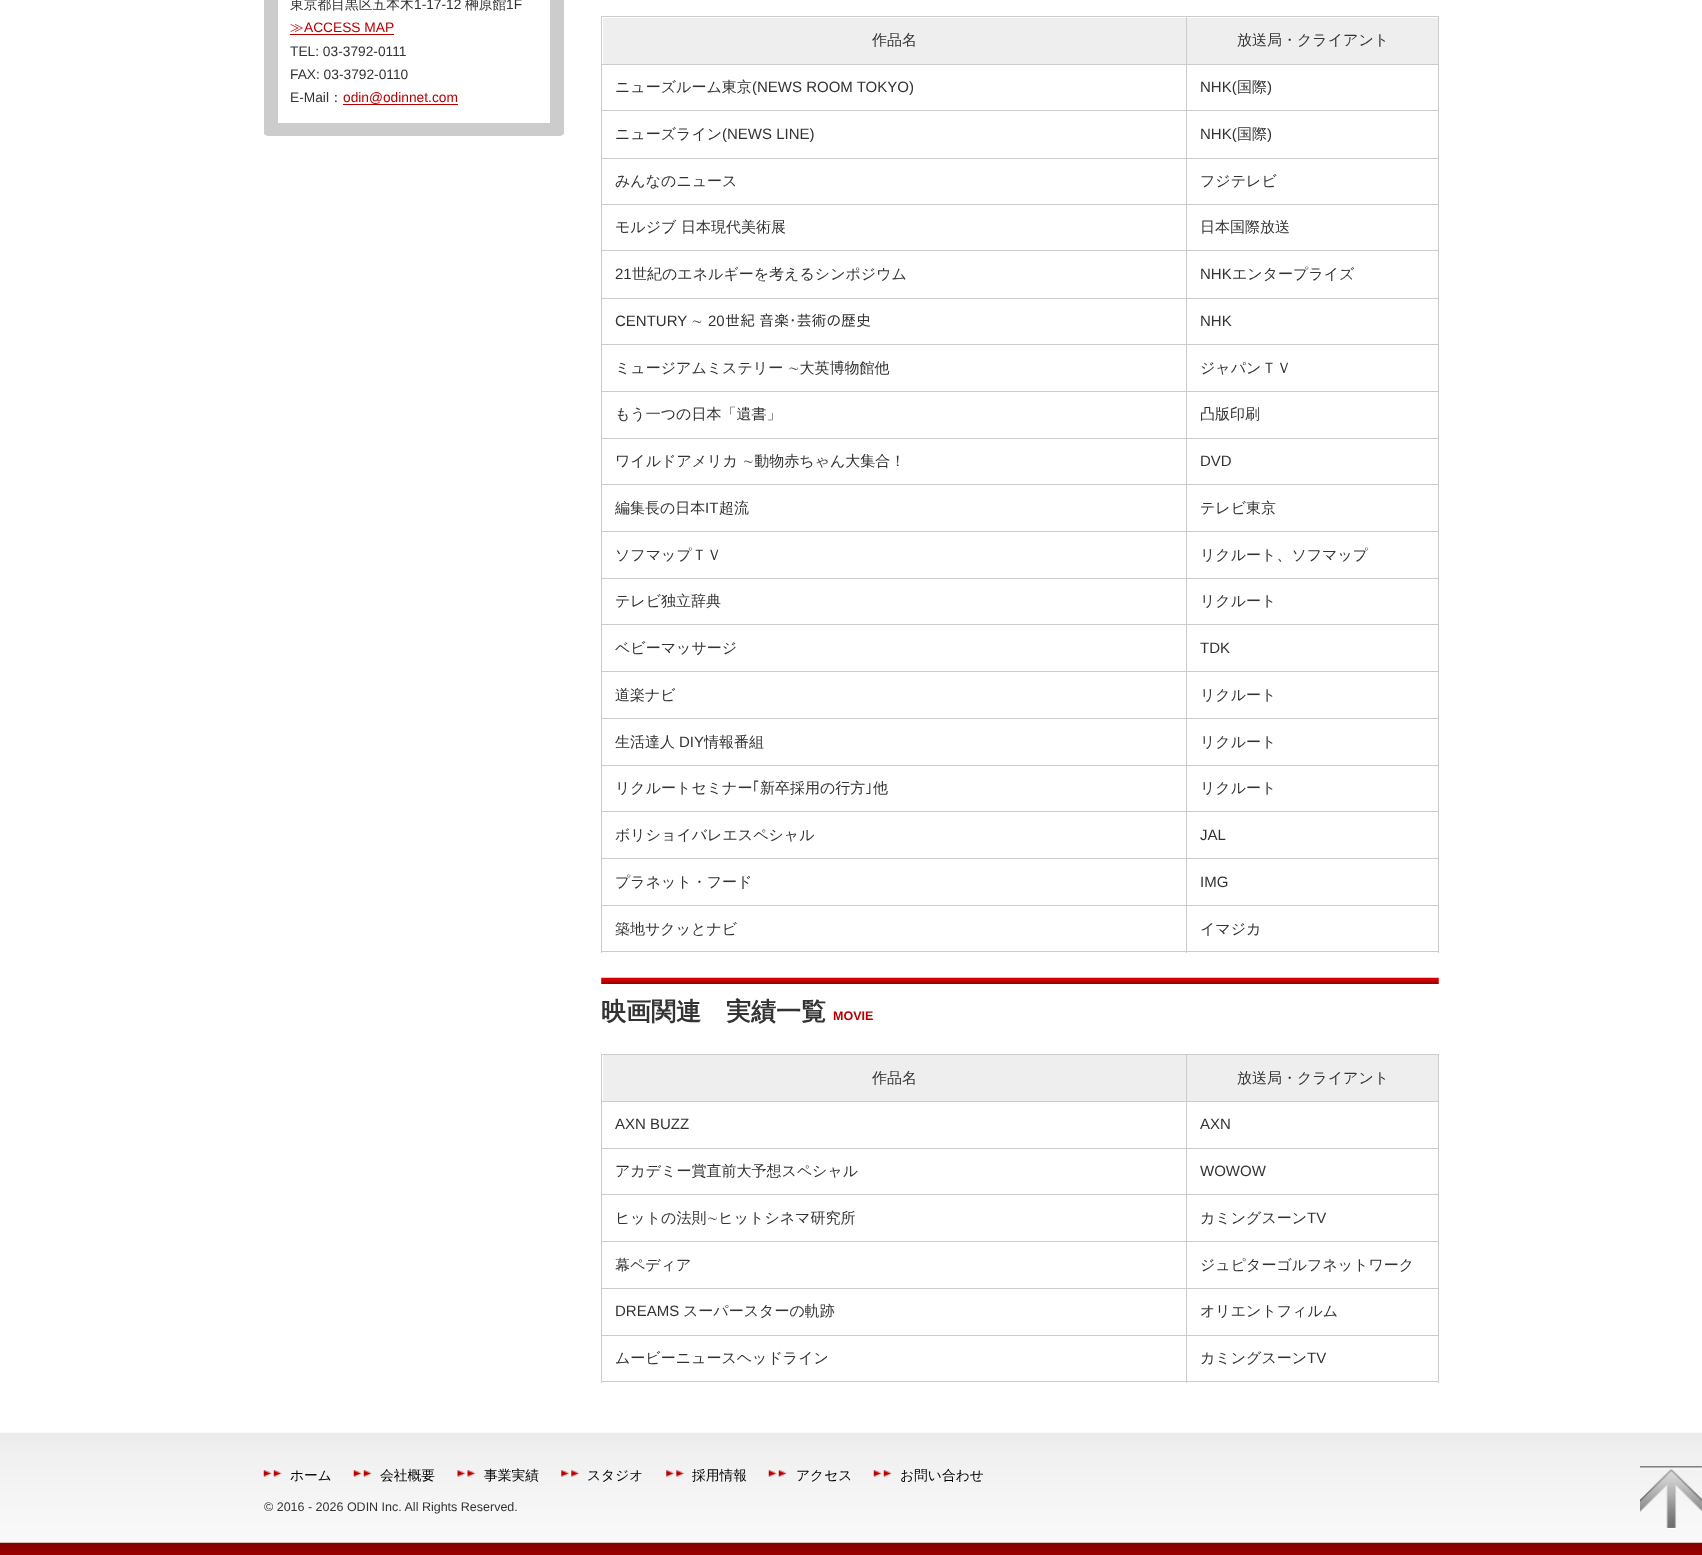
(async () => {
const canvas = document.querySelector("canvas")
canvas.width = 1702
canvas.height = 1555
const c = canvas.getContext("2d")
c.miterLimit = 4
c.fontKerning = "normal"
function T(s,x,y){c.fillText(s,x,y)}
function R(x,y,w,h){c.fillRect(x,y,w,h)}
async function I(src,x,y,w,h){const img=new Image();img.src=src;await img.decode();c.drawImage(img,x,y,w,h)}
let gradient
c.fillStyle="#fff"
R(0,0,1702,1555)
c.save()
c.beginPath()
c.roundRect(264,-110,300,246,4)
c.clip()
gradient = c.createLinearGradient(414,-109,414,135)
gradient.addColorStop(0,"#e4e4e4")
gradient.addColorStop(.29,"#ccc")
gradient.addColorStop(1,"#ccc")
c.fillStyle = gradient
R(264,0,300,135)
c.restore()
c.beginPath()
c.roundRect(264.5,-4.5,299,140,3.5)
c.strokeStyle="#ccc"
c.stroke()
R(278,0,272,123)
c.font="500 13.75px WenQuanYi Zen Hei"
c.fillStyle="#333"
T("東京都目黒区五本木",290,9)
c.font="13.75px Liberation Sans"
T("1-17-12",414,9)
c.font="500 13.75px WenQuanYi Zen Hei"
T("榊原館",465,9)
c.font="13.75px Liberation Sans"
T("1F",506,9)
c.font="500 13.75px WenQuanYi Zen Hei"
c.fillStyle="#b90000"
T("≫",290,32)
R(290,34,104,1)
c.font="13.75px Liberation Sans"
T("ACCESS MAP",304,32)
c.fillStyle="#333"
T("TEL: 03-3792-0111",290,56)
T("FAX: 03-3792-0110",290,79)
T("E-Mail",290,102)
c.font="500 13.75px WenQuanYi Zen Hei"
T("：",329,102)
c.font="13.75px Liberation Sans"
c.fillStyle="#b90000"
T("odin@odinnet.com",343,102)
R(343,104,115,1)
c.fillStyle="#ccc"
R(601,16,838,1)
R(601,16,1,937)
c.fillStyle="#eee"
R(603,18,835,46)
c.fillStyle="#ccc"
R(1438,16,1,937)
R(1186,951,253,1)
R(1186,905,1,48)
R(1186,905,253,1)
R(1186,858,1,48)
R(1186,858,253,1)
R(1186,811,1,48)
R(1186,811,253,1)
R(1186,765,1,48)
R(1186,765,253,1)
R(1186,718,1,48)
R(1186,718,253,1)
R(1186,671,1,48)
R(1186,671,253,1)
R(1186,624,1,49)
R(1186,624,253,1)
R(1186,578,1,47)
R(1186,578,253,1)
R(1186,531,1,48)
R(1186,531,253,1)
R(1186,484,1,49)
R(1186,484,253,1)
R(1186,438,1,47)
R(1186,438,253,1)
R(1186,391,1,48)
R(1186,391,253,1)
R(1186,344,1,49)
R(1186,344,253,1)
R(1186,298,1,47)
R(1186,298,253,1)
R(1186,250,1,49)
R(1186,250,253,1)
R(1186,204,1,47)
R(1186,204,253,1)
R(1186,158,1,47)
R(1186,158,253,1)
R(1186,110,1,49)
R(1186,110,253,1)
R(1186,64,1,47)
R(1186,64,253,1)
R(1186,16,1,49)
R(601,64,587,1)
c.font="500 15px WenQuanYi Zen Hei"
c.fillStyle="#333"
T("作品名",872,45)
T("放送局・クライアント",1237,45)
c.fillStyle="#ccc"
R(601,110,587,1)
c.fillStyle="#333"
T("ニューズルーム東京",615,92)
c.font="15px Liberation Sans"
T("(NEWS ROOM TOKYO)",752,92)
T("NHK(",1200,92)
c.font="500 15px WenQuanYi Zen Hei"
T("国際",1237,92)
c.font="15px Liberation Sans"
T(")",1267,92)
c.fillStyle="#ccc"
R(601,158,587,1)
c.font="500 15px WenQuanYi Zen Hei"
c.fillStyle="#333"
T("ニューズライン",615,139)
c.font="15px Liberation Sans"
T("(NEWS LINE)",722,139)
T("NHK(",1200,139)
c.font="500 15px WenQuanYi Zen Hei"
T("国際",1237,139)
c.font="15px Liberation Sans"
T(")",1267,139)
c.fillStyle="#ccc"
R(601,204,587,1)
c.font="500 15px WenQuanYi Zen Hei"
c.fillStyle="#333"
T("みんなのニュース",615,186)
T("フジテレビ",1200,186)
c.fillStyle="#ccc"
R(601,250,587,1)
c.fillStyle="#333"
T("モルジブ 日本現代美術展",615,232)
T("日本国際放送",1200,232)
c.fillStyle="#ccc"
R(601,298,587,1)
c.font="15px Liberation Sans"
c.fillStyle="#333"
T("21",615,279)
c.font="500 15px WenQuanYi Zen Hei"
T("世紀のエネルギーを考えるシンポジウム",632,279)
c.font="15px Liberation Sans"
T("NHK",1200,279)
c.font="500 15px WenQuanYi Zen Hei"
T("エンタープライズ",1232,279)
c.fillStyle="#ccc"
R(601,344,587,1)
c.font="15px Liberation Sans"
c.fillStyle="#333"
T("CENTURY",615,326)
c.font="500 15px WenQuanYi Zen Hei"
T("∼",691,326)
c.font="15px Liberation Sans"
T("20",708,326)
c.font="15px IPAPGothic"
T("世紀 音楽･芸術の歴史",725,326)
c.font="15px Liberation Sans"
T("NHK",1200,326)
c.fillStyle="#ccc"
R(601,391,587,1)
c.font="500 15px WenQuanYi Zen Hei"
c.fillStyle="#333"
T("ミュージアムミステリー ∼大英博物館他",615,373)
T("ジャパンＴＶ",1200,373)
c.fillStyle="#ccc"
R(601,438,587,1)
c.fillStyle="#333"
T("もう一つの日本「遺書」",615,419)
T("凸版印刷",1200,419)
c.fillStyle="#ccc"
R(601,484,587,1)
c.fillStyle="#333"
T("ワイルドアメリカ ∼動物赤ちゃん大集合！",615,466)
c.font="15px Liberation Sans"
T("DVD",1200,466)
c.fillStyle="#ccc"
R(601,531,587,1)
c.font="500 15px WenQuanYi Zen Hei"
c.fillStyle="#333"
T("編集長の日本",615,513)
c.font="15px Liberation Sans"
T("IT",705,513)
c.font="500 15px WenQuanYi Zen Hei"
T("超流",719,513)
T("テレビ東京",1200,513)
c.fillStyle="#ccc"
R(601,578,587,1)
c.fillStyle="#333"
T("ソフマップＴＶ",615,560)
T("リクルート、ソフマップ",1200,560)
c.fillStyle="#ccc"
R(601,624,587,1)
c.fillStyle="#333"
T("テレビ独立辞典",615,606)
T("リクルート",1200,606)
c.fillStyle="#ccc"
R(601,671,587,1)
c.fillStyle="#333"
T("ベビーマッサージ",615,653)
c.font="15px Liberation Sans"
T("TDK",1200,653)
c.fillStyle="#ccc"
R(601,718,587,1)
c.font="500 15px WenQuanYi Zen Hei"
c.fillStyle="#333"
T("道楽ナビ",615,700)
T("リクルート",1200,700)
c.fillStyle="#ccc"
R(601,765,587,1)
c.fillStyle="#333"
T("生活達人",615,747)
c.font="15px Liberation Sans"
T("DIY",679,747)
c.font="500 15px WenQuanYi Zen Hei"
T("情報番組",704,747)
T("リクルート",1200,747)
c.fillStyle="#ccc"
R(601,811,587,1)
c.fillStyle="#333"
T("リクルートセミナー",615,793)
c.font="15px IPAPGothic"
T("｢",752,793)
c.font="500 15px WenQuanYi Zen Hei"
T("新卒採用の行方",760,793)
c.font="15px IPAPGothic"
T("｣",865,793)
c.font="500 15px WenQuanYi Zen Hei"
T("他",873,793)
T("リクルート",1200,793)
c.fillStyle="#ccc"
R(601,858,587,1)
c.fillStyle="#333"
T("ボリショイバレエスペシャル",615,840)
c.font="15px Liberation Sans"
T("JAL",1200,840)
c.fillStyle="#ccc"
R(601,905,587,1)
c.font="500 15px WenQuanYi Zen Hei"
c.fillStyle="#333"
T("プラネット・フード",615,887)
c.font="15px Liberation Sans"
T("IMG",1200,887)
c.fillStyle="#ccc"
R(601,951,587,1)
c.font="500 15px WenQuanYi Zen Hei"
c.fillStyle="#333"
T("築地サクッとナビ",615,934)
T("イマジカ",1200,934)
await I("1.png",601,977,838,7)
c.font="bold 25px WenQuanYi Zen Hei"
T("映画関連　実績一覧",601,1020)
c.font="bold 12.5px Liberation Sans"
c.fillStyle="#b90000"
T("MOVIE",833,1020)
c.fillStyle="#ccc"
R(601,1054,838,1)
R(601,1054,1,329)
c.fillStyle="#eee"
R(603,1055,835,46)
c.fillStyle="#ccc"
R(1438,1054,1,329)
R(1186,1381,253,1)
R(1186,1335,1,48)
R(1186,1335,253,1)
R(1186,1288,1,48)
R(1186,1288,253,1)
R(1186,1241,1,48)
R(1186,1241,253,1)
R(1186,1194,1,49)
R(1186,1194,253,1)
R(1186,1148,1,47)
R(1186,1148,253,1)
R(1186,1101,1,48)
R(1186,1101,253,1)
R(1186,1054,1,49)
R(601,1101,587,1)
c.font="500 15px WenQuanYi Zen Hei"
c.fillStyle="#333"
T("作品名",872,1083)
T("放送局・クライアント",1237,1083)
c.fillStyle="#ccc"
R(601,1148,587,1)
c.font="15px Liberation Sans"
c.fillStyle="#333"
T("AXN BUZZ",615,1129)
T("AXN",1200,1129)
c.fillStyle="#ccc"
R(601,1194,587,1)
c.font="500 15px WenQuanYi Zen Hei"
c.fillStyle="#333"
T("アカデミー賞直前大予想スペシャル",615,1176)
c.font="15px Liberation Sans"
T("WOWOW",1200,1176)
c.fillStyle="#ccc"
R(601,1241,587,1)
c.font="500 15px WenQuanYi Zen Hei"
c.fillStyle="#333"
T("ヒットの法則∼ヒットシネマ研究所",615,1223)
T("カミングスーン",1200,1223)
c.font="15px Liberation Sans"
T("TV",1307,1223)
c.fillStyle="#ccc"
R(601,1288,587,1)
c.font="500 15px WenQuanYi Zen Hei"
c.fillStyle="#333"
T("幕ペディア",615,1270)
T("ジュピターゴルフネットワーク",1200,1270)
c.fillStyle="#ccc"
R(601,1335,587,1)
c.font="15px Liberation Sans"
c.fillStyle="#333"
T("DREAMS",615,1316)
c.font="500 15px WenQuanYi Zen Hei"
T("スーパースターの軌跡",683,1316)
T("オリエントフィルム",1200,1316)
c.fillStyle="#ccc"
R(601,1381,587,1)
c.fillStyle="#333"
T("ムービーニュースヘッドライン",615,1363)
T("カミングスーン",1200,1363)
c.font="15px Liberation Sans"
T("TV",1307,1363)
await I("2.png",0,1432,1702,123)
await I("3.png",263,1470,19,7)
c.font="500 13.75px WenQuanYi Zen Hei"
c.fillStyle="#000"
T("ホーム",290,1480)
await I("4.png",353,1470,19,7)
T("会社概要",380,1480)
await I("5.png",457,1470,19,7)
T("事業実績",484,1480)
await I("6.png",561,1470,18,7)
T("スタジオ",587,1480)
await I("6.png",666,1470,18,7)
T("採用情報",692,1480)
await I("7.png",768,1470,19,7)
T("アクセス",796,1480)
await I("4.png",873,1470,19,7)
T("お問い合わせ",900,1480)
c.font="12.5px Liberation Sans"
c.fillStyle="#333"
T("© 2016 - 2026 ODIN Inc. All Rights Reserved.",264,1511)
await I("8.png",1640,1466,62,63)
})()
